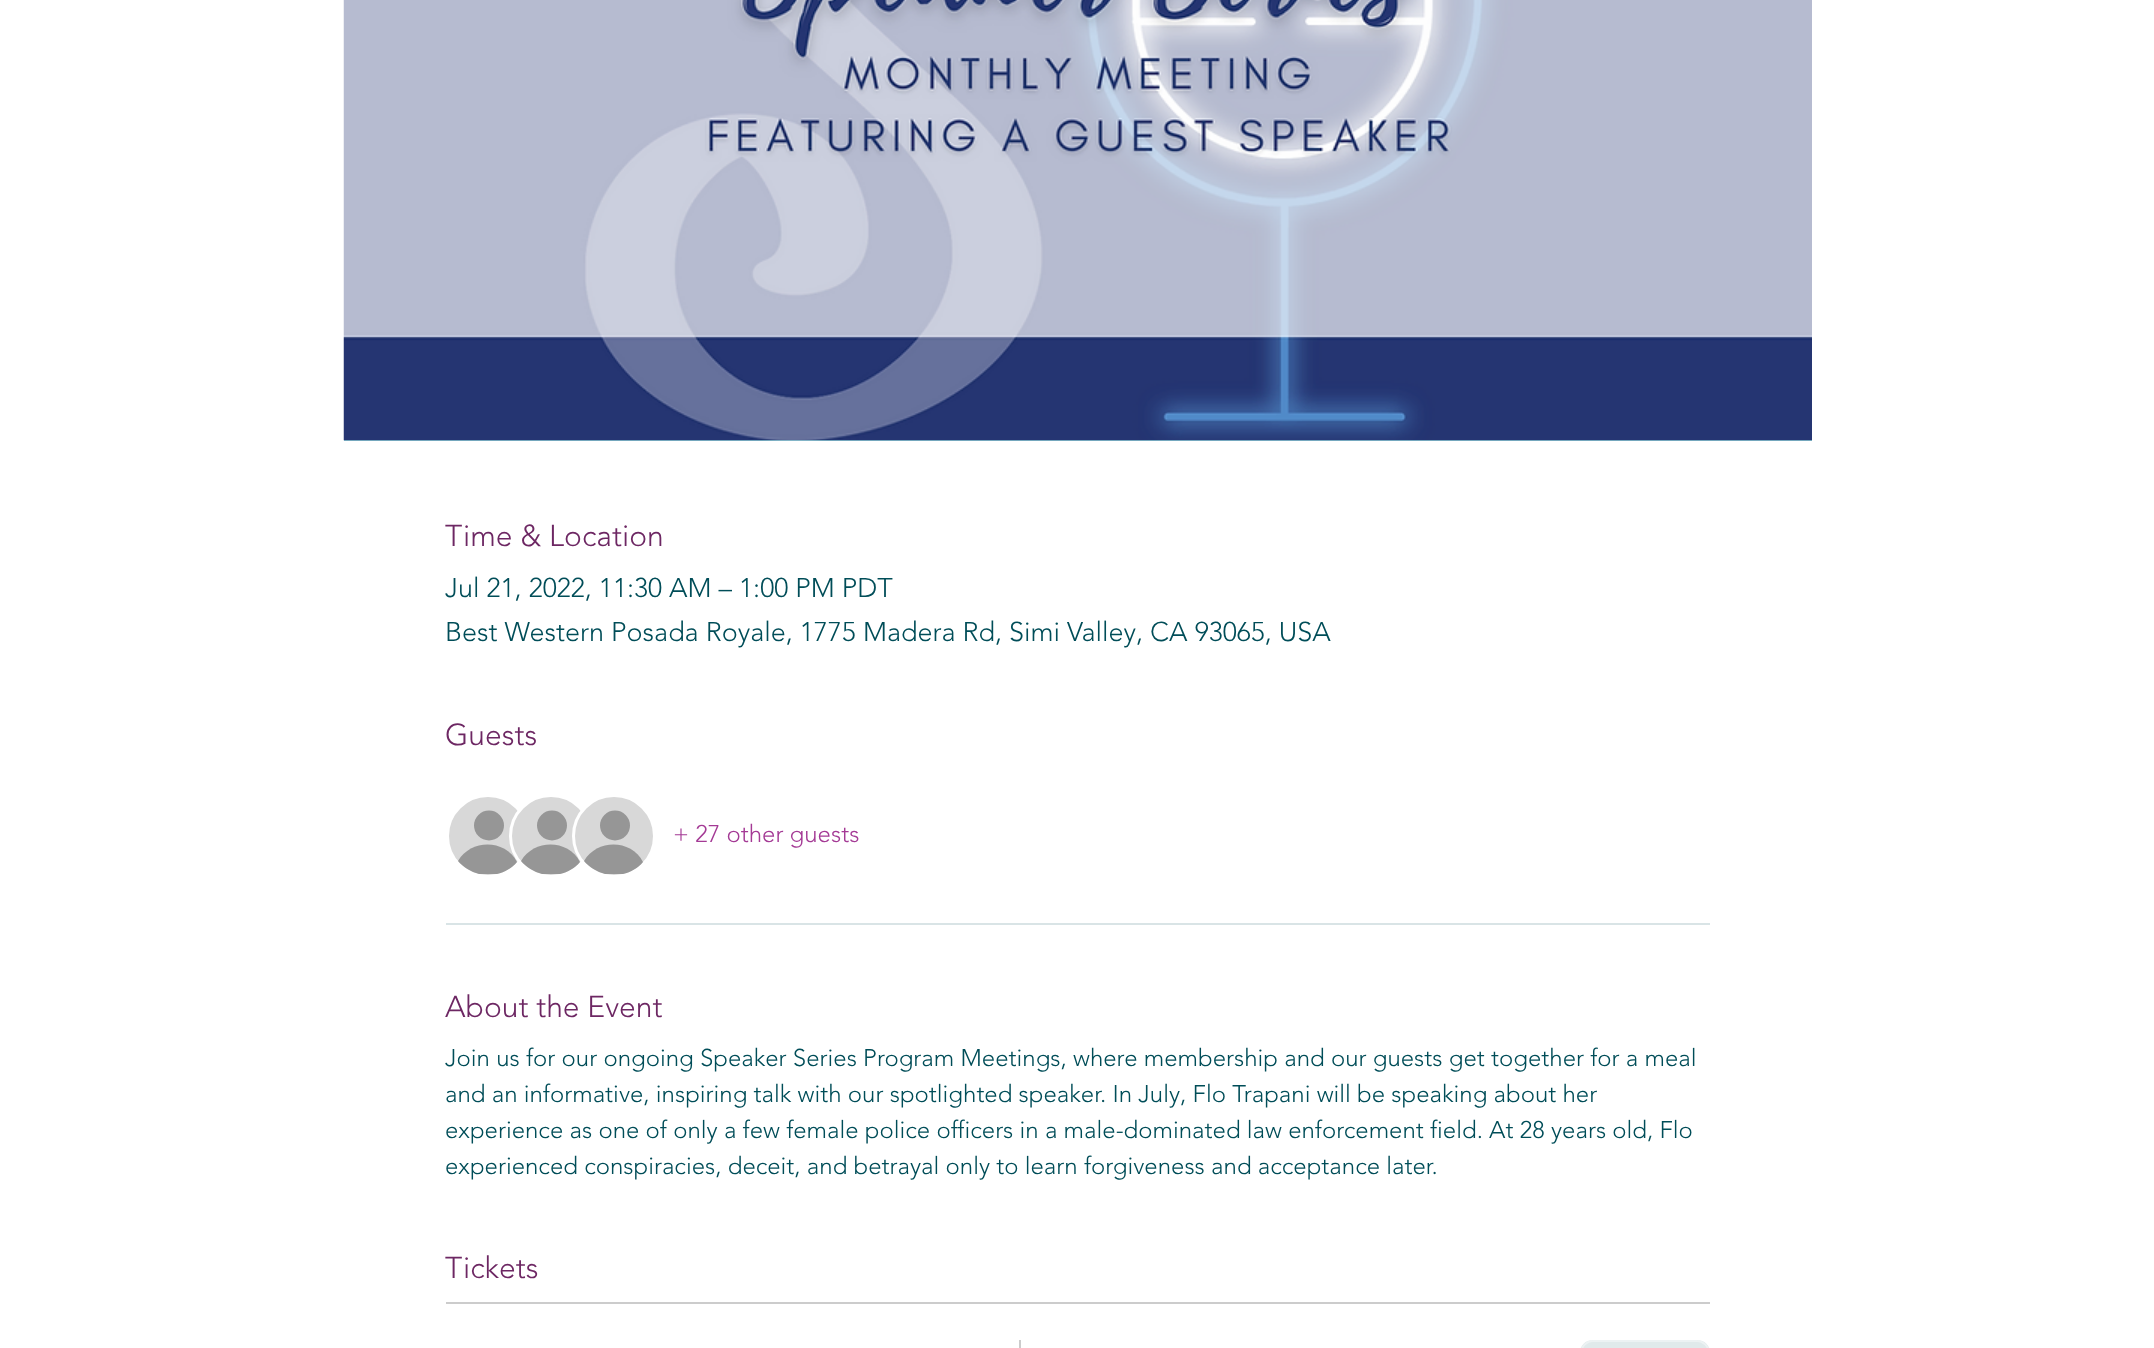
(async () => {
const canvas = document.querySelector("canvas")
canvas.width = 2154
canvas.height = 1348
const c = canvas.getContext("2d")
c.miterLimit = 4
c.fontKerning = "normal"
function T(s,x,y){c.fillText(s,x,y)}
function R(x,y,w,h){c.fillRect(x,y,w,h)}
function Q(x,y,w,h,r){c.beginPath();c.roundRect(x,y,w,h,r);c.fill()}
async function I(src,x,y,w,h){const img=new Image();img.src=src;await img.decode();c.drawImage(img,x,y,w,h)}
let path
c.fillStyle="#fff"
R(0,0,2154,1348)
c.fillStyle="#8fced7"
R(344,440,1468,1)
await I("1.png",343,0,1469,441)
c.font="300 30px 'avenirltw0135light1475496'"
c.fillStyle="#6d2763"
T("Time & Location",445,546)
c.font="300 27px 'avenirltw0135light1475496'"
c.fillStyle="#004d58"
T("Jul 21, 2022, 11:30 AM – 1:00 PM PDT",445,597)
T("Best Western Posada Royale, 1775 Madera Rd, Simi Valley, CA 93065, USA",445,641)
c.font="300 30px 'avenirltw0135light1475496'"
c.fillStyle="#6d2763"
T("Guests",445,745)
c.fillStyle="#d8d8d8"
c.beginPath()
c.arc(488,836,40.5,0,7)
c.fill()
c.strokeStyle="#fff"
c.lineWidth=3
c.stroke()
c.fillStyle="#969696"
c.beginPath()
c.arc(489,825.5,15,0,7)
c.fill()
path = new Path2D("M479 874c-8-2-16-7-21-13c13-22 47-22 59 1c-5 6-12 10-20 12z")
c.fill(path)
c.fillStyle="#d8d8d8"
c.beginPath()
c.arc(551,836,40.5,0,7)
c.fill()
c.stroke()
c.fillStyle="#969696"
c.beginPath()
c.arc(552,825.5,15,0,7)
c.fill()
path = new Path2D("M542 874c-8-2-16-7-21-13c13-22 47-22 59 1c-5 6-12 10-20 12z")
c.fill(path)
c.fillStyle="#d8d8d8"
c.beginPath()
c.arc(614,836,40.5,0,7)
c.fill()
c.stroke()
c.fillStyle="#969696"
c.beginPath()
c.arc(615,825.5,15,0,7)
c.fill()
path = new Path2D("M605 874c-8-2-16-7-21-13c13-22 47-22 59 1c-5 6-12 10-20 12z")
c.fill(path)
c.font="300 24px 'avenirltw0135light1475496'"
c.fillStyle="#a43a95"
T("+ 27 other guests",673,842)
c.fillStyle="#d9e4e6"
R(446,923,1264,2)
c.font="300 30px 'avenirltw0135light1475496'"
c.fillStyle="#6d2763"
T("About the Event",445,1017)
c.font="300 24px 'avenirltw0135light1475496'"
c.fillStyle="#004d58"
T("Join us for our ongoing Speaker Series Program Meetings, where membership and our guests get together for a meal",445,1066)
T("and an informative, inspiring talk with our spotlighted speaker. In July, Flo Trapani will be speaking about her",445,1102)
T("experience as one of only a few female police officers in a male-dominated law enforcement field. At 28 years old, Flo",445,1138)
T("experienced conspiracies, deceit, and betrayal only to learn forgiveness and acceptance later.",445,1174)
c.font="300 30px 'avenirltw0135light1475496'"
c.fillStyle="#6d2763"
T("Tickets",445,1278)
c.fillStyle="#ccc"
R(446,1302,1264,2)
R(1019,1340,2,8)
c.fillStyle="#e0eaeb"
Q(1580,1340,130,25,16.5)
c.beginPath()
c.roundRect(1581,1341,128,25,15.5)
c.strokeStyle="#ffffff66"
c.lineWidth=2
c.stroke()
})()
